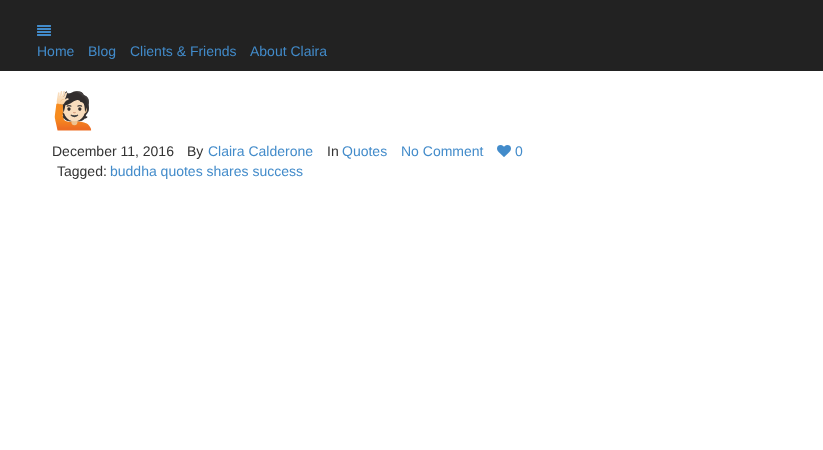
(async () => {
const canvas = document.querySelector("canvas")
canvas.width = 823
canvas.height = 450
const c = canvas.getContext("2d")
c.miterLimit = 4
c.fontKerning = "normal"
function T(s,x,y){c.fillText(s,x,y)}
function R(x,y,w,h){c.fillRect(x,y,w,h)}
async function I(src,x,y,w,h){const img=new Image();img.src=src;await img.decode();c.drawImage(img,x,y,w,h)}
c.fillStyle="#fff"
R(0,0,823,450)
c.fillStyle="#222"
R(0,0,823,71)
await I("1.png",37,25,14,11)
c.font="14px Liberation Sans"
c.fillStyle="#428bca"
T("Home",37,56)
T("Blog",88,56)
T("Clients & Friends",130,56)
T("About Claira",250,56)
c.font="36px Noto Color Emoji"
c.fillStyle="#333"
T("🙋🏻",52,123)
c.font="14px Liberation Sans"
T("December 11, 2016",52,156)
T("By",187,156)
c.fillStyle="#428bca"
T("Claira Calderone",208,156)
c.fillStyle="#333"
T("In",327,156)
c.fillStyle="#428bca"
T("Quotes",342,156)
T("No Comment",401,156)
await I("2.png",497,145,14,12)
T("0",515,156)
c.fillStyle="#333"
T("Tagged:",57,176)
c.fillStyle="#428bca"
T("buddha quotes shares success",110,176)
})()
